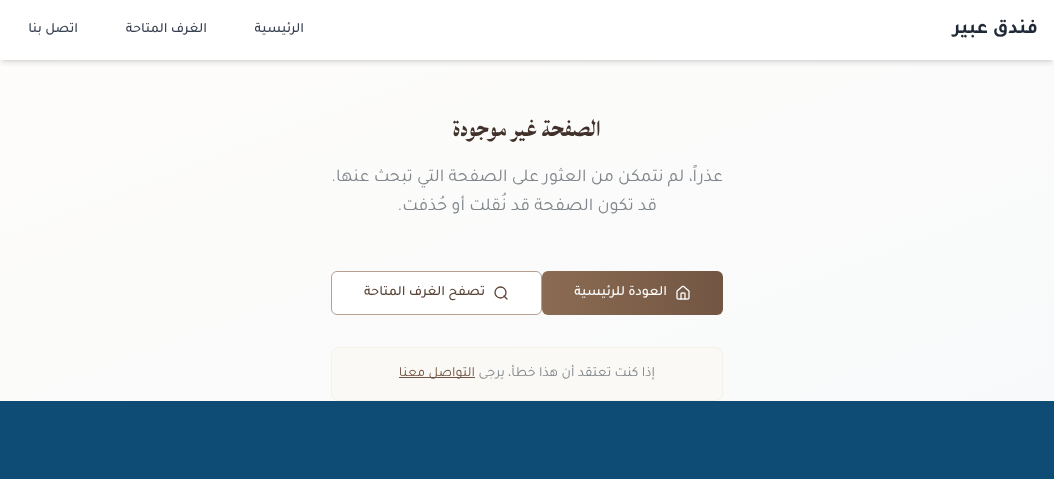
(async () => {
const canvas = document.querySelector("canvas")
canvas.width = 1054
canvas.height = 479
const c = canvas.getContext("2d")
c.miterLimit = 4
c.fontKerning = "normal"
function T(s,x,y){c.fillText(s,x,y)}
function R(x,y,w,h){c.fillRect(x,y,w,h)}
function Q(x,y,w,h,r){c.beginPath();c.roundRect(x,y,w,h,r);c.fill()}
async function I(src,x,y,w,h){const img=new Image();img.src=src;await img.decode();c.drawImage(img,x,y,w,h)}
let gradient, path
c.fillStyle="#fff"
R(0,0,1054,479)
gradient = c.createLinearGradient(394,-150,660,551)
gradient.addColorStop(0,"#fefdfb")
gradient.addColorStop(1,"#f8f9fa")
c.fillStyle = gradient
R(0,0,1054,401)
c.save()
c.beginPath()
c.rect(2,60,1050,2)
c.clip()
c.fillStyle="#0000001a"
c.filter="blur(2px)"
c.beginPath()
c.rect(2,4,1050,56)
c.fill()
c.filter="none"
c.restore()
c.save()
c.beginPath()
c.rect(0,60,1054,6)
c.clip()
c.fillStyle="#0000001a"
c.filter="blur(3px)"
c.beginPath()
c.rect(1,5,1052,58)
c.fill()
c.filter="none"
c.restore()
c.fillStyle="#ffffffe6"
R(0,0,1054,60)
c.direction="rtl"
c.font="bold 20px Tajawal"
c.fillStyle="#1f2937"
T("فندق عبير",1038,33)
c.font="500 14px Tajawal"
c.fillStyle="#374151"
T("الرئيسية",304,32)
T("الغرف المتاحة",207,32)
T("اتصل بنا",78,32)
c.font="bold 30px Lateef"
c.fillStyle="#42312a"
T("الصفحة غير موجودة",601,136)
c.font="18px Tajawal"
c.fillStyle="#80868b"
T("عذراً، لم نتمكن من العثور على الصفحة التي تبحث عنها.",723,181)
T("قد تكون الصفحة قد نُقلت أو حُذفت.",657,210)
gradient = c.createLinearGradient(542,293,723,293)
gradient.addColorStop(0,"#8b6b52")
gradient.addColorStop(1,"#725643")
c.fillStyle = gradient
Q(542,271,181,44,6)
await I("1.png",676,285,14,15)
c.font="500 14px Tajawal"
c.fillStyle="#fff"
T("العودة للرئيسية",667,295)
c.beginPath()
c.roundRect(331.5,271.5,210,43,5.5)
c.fill()
c.strokeStyle="#b8a091"
c.stroke()
c.beginPath()
c.arc(500.5,292.5,5.5,0,7)
c.strokeStyle="#5a4336"
c.lineWidth=1.3
c.stroke()
path = new Path2D("M507 299l-3-3")
c.lineCap="round"
c.lineJoin="round"
c.stroke(path)
c.fillStyle="#5a4336"
T("تصفح الغرف المتاحة",485,295)
c.fillStyle="#fbf9f5"
c.beginPath()
c.roundRect(331.5,347.5,391,53,7.5)
c.fill()
c.strokeStyle="#f5f0e8"
c.lineWidth=1
c.lineJoin="miter"
c.stroke()
c.font="14px Tajawal"
c.fillStyle="#80868b"
T("إذا كنت تعتقد أن هذا خطأ، يرجى",655,376)
c.fillStyle="#725643"
R(399,377,76,1)
T("التواصل معنا",475,376)
c.fillStyle="#0f4c75"
R(0,401,1054,78)
})()
